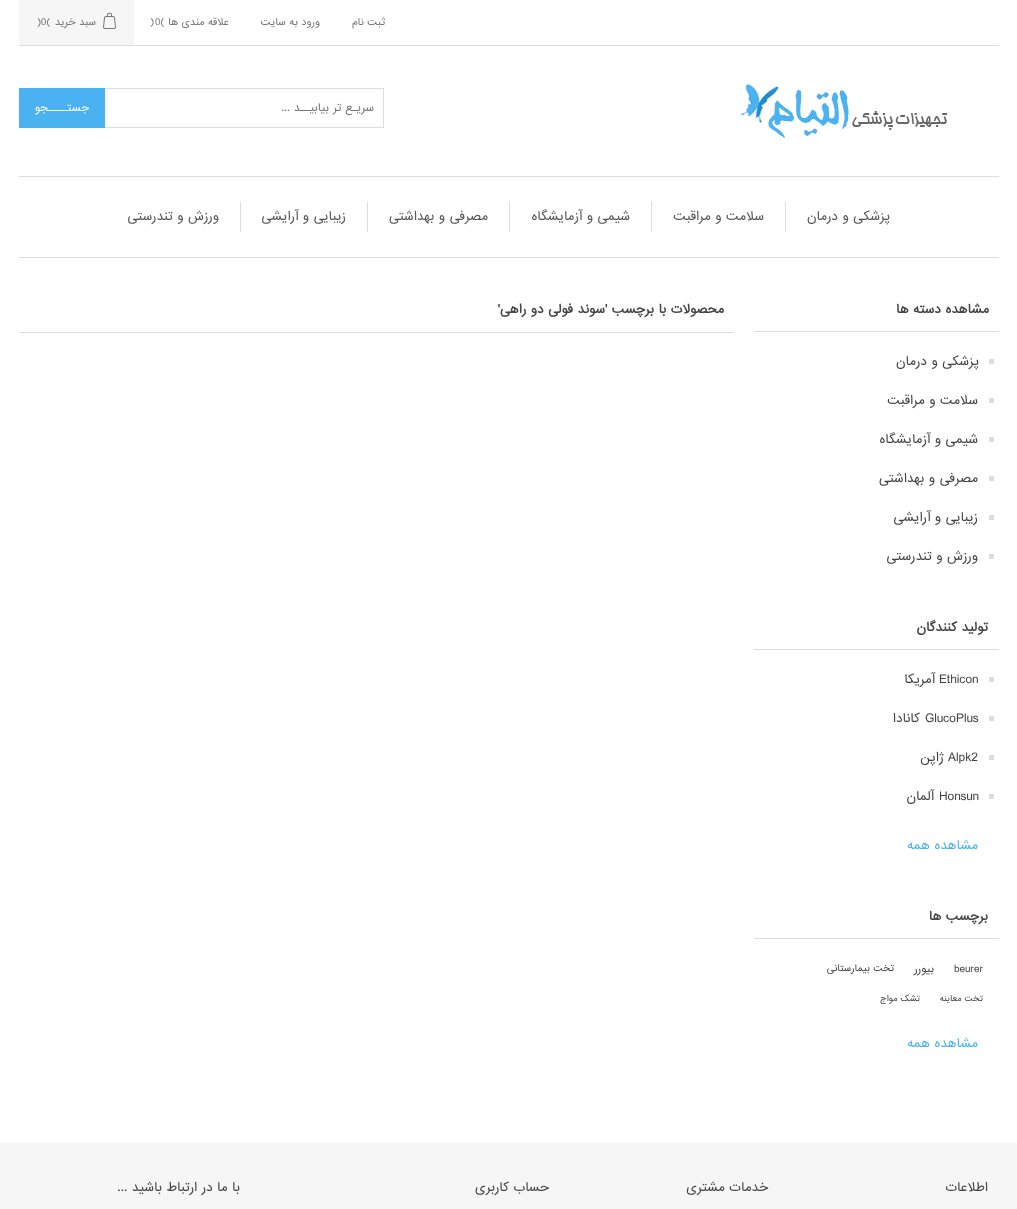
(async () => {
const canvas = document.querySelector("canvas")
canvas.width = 1017
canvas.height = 1209
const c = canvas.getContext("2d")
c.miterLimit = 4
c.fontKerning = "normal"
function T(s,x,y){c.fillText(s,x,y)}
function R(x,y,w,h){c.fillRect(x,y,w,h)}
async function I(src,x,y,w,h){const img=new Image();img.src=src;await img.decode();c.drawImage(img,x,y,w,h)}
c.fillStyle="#fff"
R(0,0,1017,1209)
c.fillStyle="#ddd"
R(19,45,980,1)
c.direction="rtl"
c.font="9.5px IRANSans"
c.fillStyle="#757575"
T("ثبت نام",385,25)
T("ورود به سایت",320,25)
T("علاقه مندی ها",229,25)
c.direction="ltr"
T("0(",155,25)
T(")",150,25)
c.fillStyle="#f6f6f6"
R(19,0,115,45)
await I("1.png",103,12,13,17)
c.direction="rtl"
c.fillStyle="#757575"
T("سبد خرید",96,25)
c.direction="ltr"
T("0(",41,25)
T(")",37,25)
await I("2.png",740,83,208,55)
c.strokeStyle="#ddd"
c.strokeRect(104.5,88.5,279,39)
c.direction="rtl"
c.font="10.5px IRANSans"
T("سریـع تر بیابیــد ...",374,111)
c.fillStyle="#4ab2f1"
R(19,88,86,40)
c.fillStyle="#fff"
T("جستــــجو",89,111)
c.fillStyle="#ddd"
R(19,176,980,1)
R(19,257,980,1)
c.font="12px IRANSans"
c.fillStyle="#555"
T("پزشکی و درمان",890,220)
c.fillStyle="#ddd"
R(785,202,1,30)
c.fillStyle="#555"
T("سلامت و مراقبت",764,220)
c.fillStyle="#ddd"
R(651,202,1,30)
c.fillStyle="#555"
T("شیمی و آزمایشگاه",630,220)
c.fillStyle="#ddd"
R(509,202,1,30)
c.fillStyle="#555"
T("مصرفی و بهداشتی",488,220)
c.fillStyle="#ddd"
R(367,202,1,30)
c.fillStyle="#555"
T("زیبایی و آرایشی",346,220)
c.fillStyle="#ddd"
R(240,202,1,30)
c.fillStyle="#555"
T("ورزش و تندرستی",219,220)
c.fillStyle="#ddd"
R(754,331,245,1)
c.font="bold 12px IRANSans"
c.fillStyle="#444"
T("مشاهده دسته ها",989,313)
c.fillStyle="#ddd"
R(989,359,5,5)
c.font="12px IRANSans"
c.fillStyle="#444"
T("پزشکی و درمان",979,365)
c.fillStyle="#ddd"
R(989,398,5,5)
c.fillStyle="#444"
T("سلامت و مراقبت",978,404)
c.fillStyle="#ddd"
R(989,437,5,5)
c.fillStyle="#444"
T("شیمی و آزمایشگاه",978,443)
c.fillStyle="#ddd"
R(989,476,5,5)
c.fillStyle="#444"
T("مصرفی و بهداشتی",978,482)
c.fillStyle="#ddd"
R(989,515,5,5)
c.fillStyle="#444"
T("زیبایی و آرایشی",978,521)
c.fillStyle="#ddd"
R(989,554,5,5)
c.fillStyle="#444"
T("ورزش و تندرستی",978,560)
c.fillStyle="#ddd"
R(754,649,245,1)
c.font="bold 12px IRANSans"
c.fillStyle="#444"
T("تولید کنندگان",988,631)
c.fillStyle="#ddd"
R(989,677,5,5)
c.direction="ltr"
c.font="12px IRANSans"
c.fillStyle="#444"
T("Ethicon",939,683)
c.direction="rtl"
T("آمریکا",935,683)
c.fillStyle="#ddd"
R(989,716,5,5)
c.direction="ltr"
c.fillStyle="#444"
T("GlucoPlus",925,722)
c.direction="rtl"
T("کانادا",920,722)
c.fillStyle="#ddd"
R(989,755,5,5)
c.direction="ltr"
c.fillStyle="#444"
T("Alpk2",948,761)
c.direction="rtl"
T("ژاپن",944,761)
c.fillStyle="#ddd"
R(989,794,5,5)
c.direction="ltr"
c.fillStyle="#444"
T("Honsun",939,800)
c.direction="rtl"
T("آلمان",934,800)
c.fillStyle="#4ab2f1"
T("مشاهده همه",978,849)
c.fillStyle="#ddd"
R(754,938,245,1)
c.font="bold 12px IRANSans"
c.fillStyle="#444"
T("برچسب ها",988,920)
c.direction="ltr"
c.font="10px IRANSans"
T("beurer",954,972)
c.direction="rtl"
T("بیورر",934,972)
c.font="9px IRANSans"
T("تخت بیمارستانی",894,971)
c.font="8px IRANSans"
T("تخت معاینه",983,1001)
T("تشک مواج",920,1001)
c.font="12px IRANSans"
c.fillStyle="#4ab2f1"
T("مشاهده همه",978,1047)
c.fillStyle="#ddd"
R(19,332,715,1)
c.font="bold 12px IRANSans"
c.fillStyle="#444"
T("محصولات با برچسب 'سوند فولی دو راهی'",724,313)
c.fillStyle="#f6f6f6"
R(0,1143,1017,66)
c.font="12px IRANSans"
c.fillStyle="#444"
T("اطلاعات",988,1191)
T("خدمات مشتری",768,1191)
T("حساب کاربری",549,1191)
T("با ما در ارتباط باشید ...",240,1191)
})()
